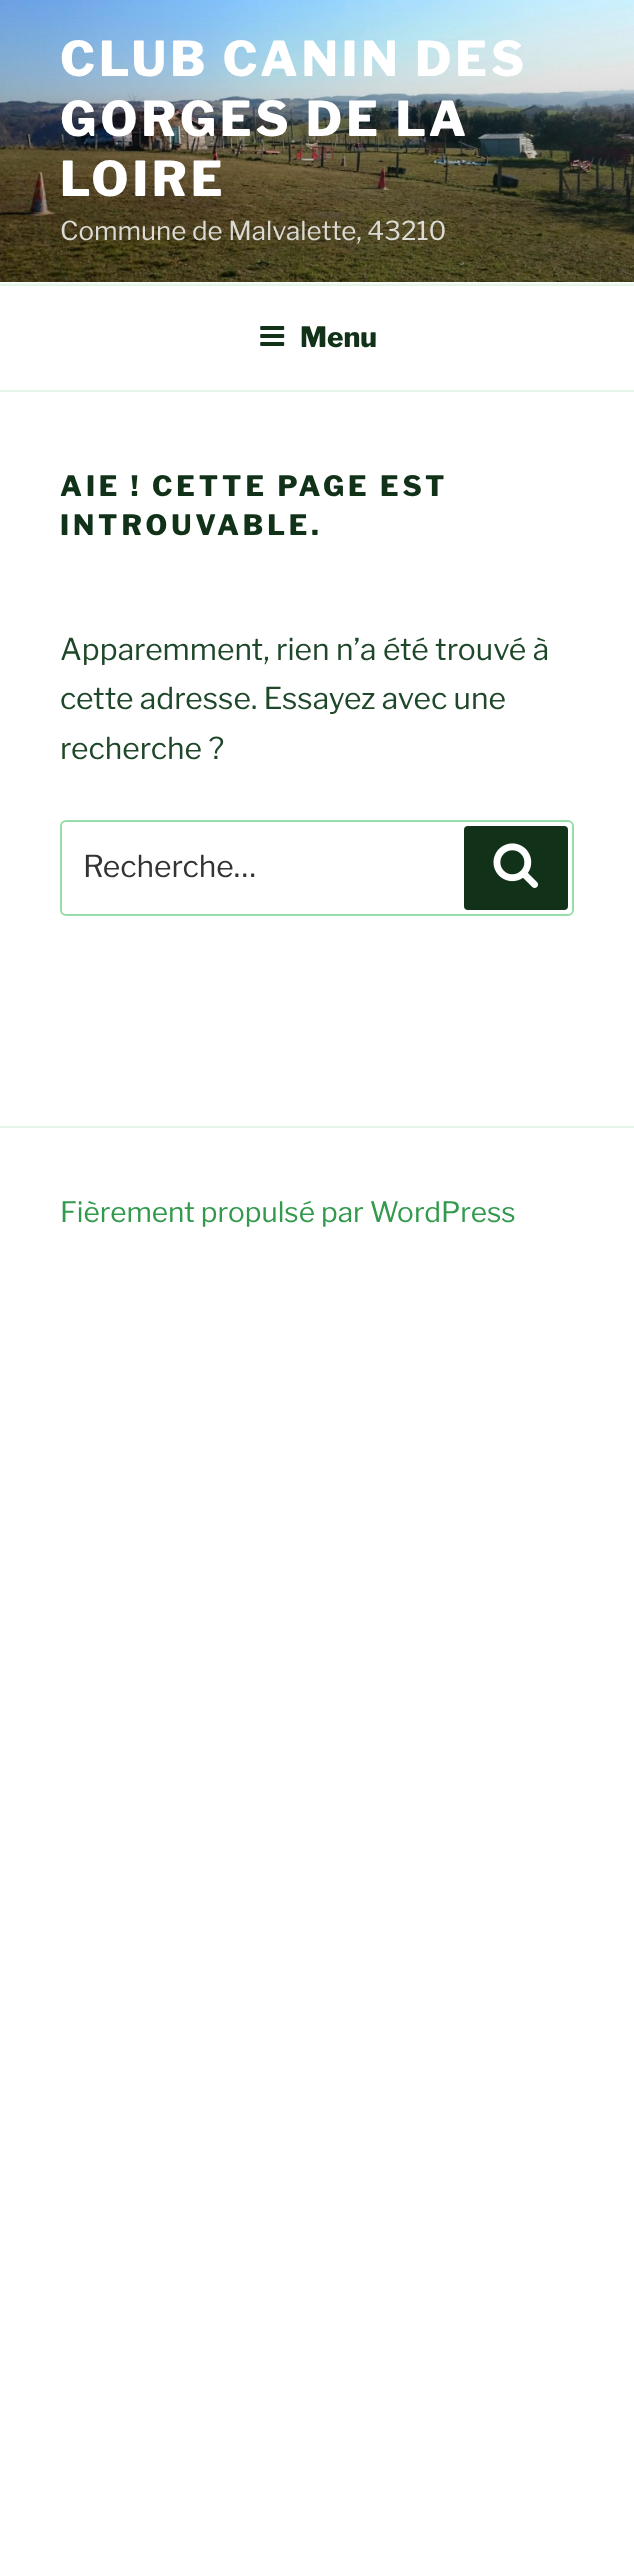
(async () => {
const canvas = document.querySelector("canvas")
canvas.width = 634
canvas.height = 2567
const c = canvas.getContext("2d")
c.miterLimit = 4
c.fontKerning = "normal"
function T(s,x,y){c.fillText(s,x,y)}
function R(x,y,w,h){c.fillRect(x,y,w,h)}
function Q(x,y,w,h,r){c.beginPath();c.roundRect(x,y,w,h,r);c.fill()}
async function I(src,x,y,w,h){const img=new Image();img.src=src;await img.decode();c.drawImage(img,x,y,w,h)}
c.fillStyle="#fff"
R(0,0,634,2567)
c.fillStyle="#f7fcf9"
R(0,282,634,2)
await I("1.png",0,0,634,282)
c.letterSpacing="3.8px"
c.font="800 48px Libre Franklin"
c.fillStyle="#fff"
T("CLUB CANIN DES",60,76)
T("GORGES DE LA",60,136)
T("LOIRE",60,196)
c.letterSpacing="0px"
c.font="26px Libre Franklin"
c.fillStyle="#dbdad3"
T("Commune de Malvalette, 43210",60,240)
c.fillStyle="#e4f6e9"
R(0,284,634,2)
R(0,390,634,2)
await I("2.png",260,326,25,20)
c.font="800 28px Libre Franklin"
c.fillStyle="#113219"
T("Menu",300,347)
c.letterSpacing="3.9px"
T("AIE ! CETTE PAGE EST",60,496)
T("INTROUVABLE.",60,535)
c.letterSpacing="0px"
c.font="30px Libre Franklin"
c.fillStyle="#1f4729"
T("Apparemment, rien n’a été trouvé à",60,660)
T("cette adresse. Essayez avec une",60,709)
T("recherche ?",60,759)
c.beginPath()
c.roundRect(61,821,512,94,5)
c.strokeStyle="#98dda9"
c.lineWidth=2
c.stroke()
c.fillStyle="#333"
T("Recherche…",83,877)
c.fillStyle="#113219"
Q(464,826,104,84,4)
await I("3.png",493,843,46,45)
c.fillStyle="#e4f6e9"
R(0,1126,634,2)
c.font="28px Libre Franklin"
c.fillStyle="#33994d"
T("Fièrement propulsé par WordPress",60,1222)
})()
